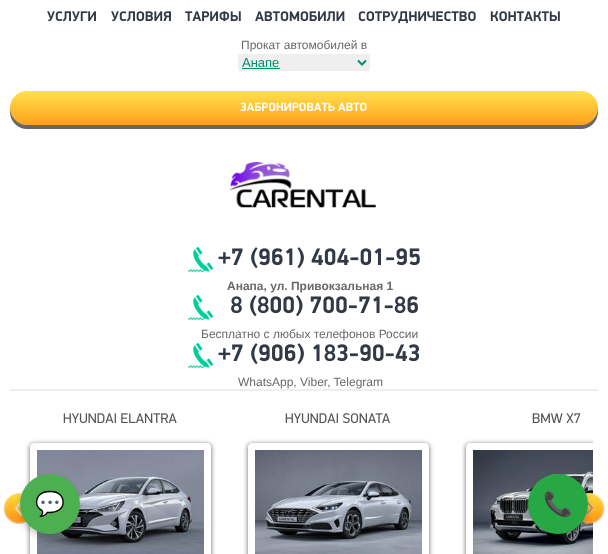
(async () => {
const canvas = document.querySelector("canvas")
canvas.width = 608
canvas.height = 554
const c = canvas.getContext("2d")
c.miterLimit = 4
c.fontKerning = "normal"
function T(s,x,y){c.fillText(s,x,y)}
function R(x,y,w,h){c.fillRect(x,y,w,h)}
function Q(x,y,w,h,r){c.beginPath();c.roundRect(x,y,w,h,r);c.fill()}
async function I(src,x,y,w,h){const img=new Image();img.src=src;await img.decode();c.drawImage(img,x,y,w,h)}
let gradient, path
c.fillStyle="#fff"
R(0,0,608,554)
c.fillStyle="#eee"
R(10,389,588,2)
await I("1.png",47,11,49,11)
await I("2.png",111,11,60,11)
await I("3.png",185,11,56,10)
await I("4.png",255,11,90,11)
await I("5.png",358,11,118,13)
await I("6.png",490,11,70,11)
c.font="12px Liberation Sans"
c.fillStyle="#696969"
T("Прокат автомобилей в",241,49)
c.fillStyle="#efefef"
R(238,54,132,17)
path = new Path2D("M358 60.5l4 4l4-4")
c.strokeStyle="#01906d"
c.lineWidth=2
c.stroke(path)
c.font="13px Liberation Sans"
c.fillStyle="#01906d"
T("Анапе",242,67)
R(242,68,38,1)
c.fillStyle="#666"
c.filter="blur(0.5px)"
c.beginPath()
c.roundRect(10,95,588,34,17)
c.fill()
c.filter="none"
gradient = c.createLinearGradient(304,91,304,125)
gradient.addColorStop(0,"#ffe14b")
gradient.addColorStop(1,"#ffa01e")
c.fillStyle = gradient
Q(10,91,588,34,17)
await I("7.png",240,102,127,10)
await I("8.png",229,162,147,46)
await I("9.png",188,247,25,25)
await I("10.png",218,247,202,22)
c.font="bold 12px Liberation Sans"
c.fillStyle="#696969"
T("Анапа, ул. Привокзальная 1",227,290)
await I("9.png",188,295,25,25)
await I("11.png",231,295,187,22)
c.font="12px Liberation Sans"
T("Бесплатно с любых телефонов России",201,338)
await I("9.png",188,343,25,25)
await I("12.png",218,343,202,22)
T("WhatsApp, Viber, Telegram",238,386)
await I("13.png",63,413,114,11)
c.save()
path = new Path2D("M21 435h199v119h-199zm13 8h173c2 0 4 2 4 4v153c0 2-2 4-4 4h-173c-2 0-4-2-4-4v-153c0-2 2-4 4-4z")
c.clip(path,"evenodd")
c.fillStyle="#666"
c.filter="blur(2.5px)"
c.beginPath()
c.roundRect(30,444,181,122,4)
c.fill()
c.filter="none"
c.restore()
await I("14.png",37,450,167,104)
await I("15.png",285,413,105,11)
c.save()
path = new Path2D("M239 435h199v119h-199zm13 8h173c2 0 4 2 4 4v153c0 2-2 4-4 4h-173c-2 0-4-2-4-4v-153c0-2 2-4 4-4z")
c.clip(path,"evenodd")
c.fillStyle="#666"
c.filter="blur(2.5px)"
c.beginPath()
c.roundRect(248,444,181,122,4)
c.fill()
c.filter="none"
c.restore()
await I("16.png",255,450,167,104)
await I("17.png",532,413,49,10)
c.save()
c.beginPath()
c.rect(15,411,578,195)
c.clip()
path = new Path2D("M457 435h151v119h-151zm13 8h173c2 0 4 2 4 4v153c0 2-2 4-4 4h-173c-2 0-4-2-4-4v-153c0-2 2-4 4-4z")
c.clip(path,"evenodd")
c.fillStyle="#666"
c.filter="blur(2.5px)"
c.beginPath()
c.roundRect(466,444,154,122,4)
c.fill()
c.filter="none"
c.restore()
await I("18.png",473,450,120,104)
await I("19.png",3,493,24,32)
await I("20.png",581,493,24,32)
c.fillStyle="#00000033"
c.filter="blur(3px)"
c.beginPath()
c.roundRect(20,478,60,60,30)
c.fill()
c.filter="none"
c.fillStyle="#4caf50"
c.beginPath()
c.arc(50,504,30,0,7)
c.fill()
c.font="24px Noto Color Emoji"
c.fillStyle="#fff"
T("💬",35,512)
c.fillStyle="#00000033"
c.filter="blur(3px)"
c.beginPath()
c.roundRect(528,478,60,60,30)
c.fill()
c.filter="none"
c.fillStyle="#28a745"
c.beginPath()
c.arc(558,504,30,0,7)
c.fill()
c.fillStyle="#fff"
T("📞",543,512)
})()
